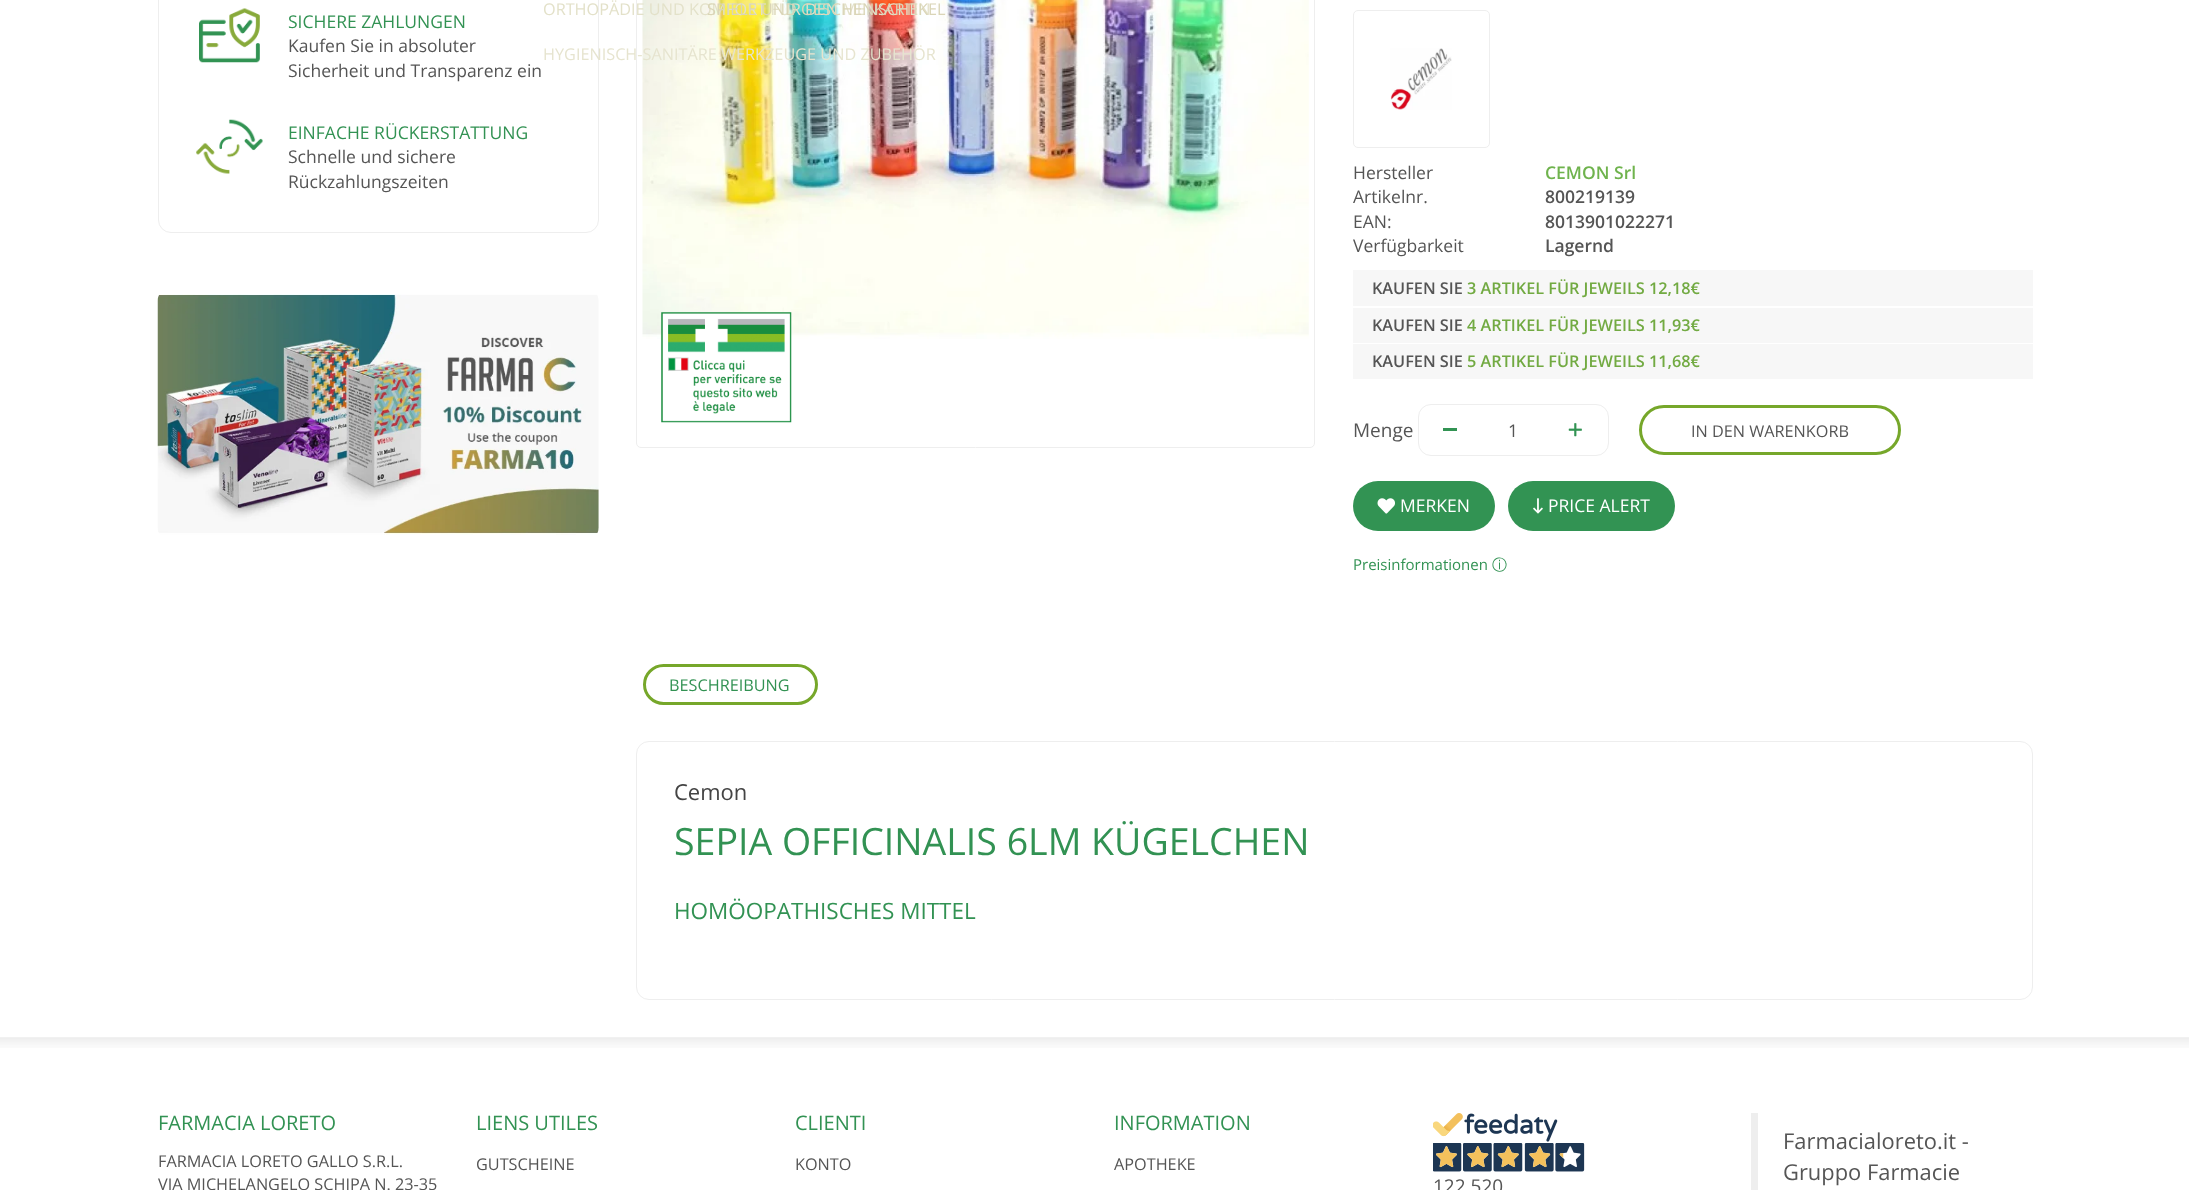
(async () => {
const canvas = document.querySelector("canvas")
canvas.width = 2189
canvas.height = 1190
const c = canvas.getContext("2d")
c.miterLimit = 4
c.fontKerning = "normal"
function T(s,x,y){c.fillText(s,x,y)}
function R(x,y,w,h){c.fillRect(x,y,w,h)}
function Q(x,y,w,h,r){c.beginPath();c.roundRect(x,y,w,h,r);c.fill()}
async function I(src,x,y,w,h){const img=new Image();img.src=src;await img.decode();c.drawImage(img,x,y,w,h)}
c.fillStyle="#fff"
R(0,0,2189,1190)
c.beginPath()
c.roundRect(158.5,-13.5,440,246,12.5)
c.strokeStyle="#eee"
c.stroke()
c.beginPath()
c.roundRect(636.5,-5.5,678,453,4.5)
c.stroke()
await I("4.png",642,0,667,339)
c.font="16.25px Open Sans"
c.fillStyle="#e3e1c9"
T("ORTHOPÄDIE UND KOMFORT FÜR DEN MENSCHEN",543,15)
c.fillStyle="#e6e4cf"
T("HYGIENISCH-SANITÄRE WERKZEUGE UND ZUBEHÖR",543,60)
c.fillStyle="#dad5b7"
T("SPIELE UND GESCHENKARTIKEL",707,15)
await I("1.png",199,8,61,55)
c.font="17.5px Open Sans"
c.fillStyle="#329253"
T("SICHERE ZAHLUNGEN",288,28)
c.fillStyle="#555"
T("Kaufen Sie in absoluter",288,52)
T("Sicherheit und Transparenz ein",288,77)
await I("2.png",196,119,67,55)
c.fillStyle="#329253"
T("EINFACHE RÜCKERSTATTUNG",288,139)
c.fillStyle="#555"
T("Schnelle und sichere",288,163)
T("Rückzahlungszeiten",288,188)
await I("3.png",157,294,442,241)
await I("5.png",661,312,131,111)
c.beginPath()
c.roundRect(1353.5,10.5,136,137,4.5)
c.stroke()
await I("6.png",1390,48,62,62)
T("Hersteller",1353,179)
c.font="600 17.5px Open Sans"
c.fillStyle="#6fb34d"
T("CEMON Srl",1545,179)
c.font="17.5px Open Sans"
c.fillStyle="#555"
T("Artikelnr.",1353,203)
c.font="600 17.5px Open Sans"
T("800219139",1545,203)
c.font="17.5px Open Sans"
T("EAN:",1353,228)
c.font="600 17.5px Open Sans"
T("8013901022271",1545,228)
c.font="17.5px Open Sans"
T("Verfügbarkeit",1353,252)
c.font="600 17.5px Open Sans"
T("Lagernd",1545,252)
c.fillStyle="#f7f7f7"
R(1353,270,680,36)
c.font="600 16.25px Open Sans"
c.fillStyle="#555"
T("KAUFEN SIE",1372,294)
c.fillStyle="#72aa42"
T("3 ARTIKEL FÜR JEWEILS 12,18€",1467,294)
c.fillStyle="#f7f7f7"
R(1353,308,680,35)
c.fillStyle="#555"
T("KAUFEN SIE",1372,331)
c.fillStyle="#72aa42"
T("4 ARTIKEL FÜR JEWEILS 11,93€",1467,331)
c.fillStyle="#f7f7f7"
R(1353,344,680,35)
c.fillStyle="#555"
T("KAUFEN SIE",1372,367)
c.fillStyle="#72aa42"
T("5 ARTIKEL FÜR JEWEILS 11,68€",1467,367)
c.font="19px Open Sans"
c.fillStyle="#555"
T("Menge",1353,437)
c.beginPath()
c.roundRect(1418.5,404.5,190,51,12.5)
c.stroke()
c.fillStyle="#329353"
R(1443,428,14,3)
c.font="17.5px Open Sans"
c.fillStyle="#555"
T("1",1508,437)
await I("7.png",1568,423,14,14)
c.beginPath()
c.roundRect(1640.5,406.5,259,47,23.5)
c.strokeStyle="#76a72a"
c.lineWidth=3
c.stroke()
c.font="16.25px Open Sans"
T("IN DEN WARENKORB",1691,437)
c.fillStyle="#329353"
Q(1353,481,142,50,25)
await I("8.png",1377,498,18,16)
c.font="17.5px Open Sans"
c.fillStyle="#fff"
T("MERKEN",1400,512)
c.fillStyle="#329353"
Q(1508,481,167,50,25)
await I("9.png",1533,498,10,16)
c.fillStyle="#fff"
T("PRICE ALERT",1548,512)
c.font="15px Open Sans"
c.fillStyle="#329253"
T("Preisinformationen",1353,570)
c.font="500 15px WenQuanYi Zen Hei"
T("ⓘ",1492,570)
c.beginPath()
c.roundRect(644.5,665.5,172,38,19)
c.stroke()
c.font="16.25px Open Sans"
T("BESCHREIBUNG",669,691)
c.beginPath()
c.roundRect(636.5,741.5,1396,258,12.5)
c.strokeStyle="#eee"
c.lineWidth=1
c.stroke()
c.font="22px Open Sans"
c.fillStyle="#444"
T("Cemon",674,800)
c.font="37.5px Open Sans"
c.fillStyle="#329253"
T("SEPIA OFFICINALIS 6LM KÜGELCHEN",674,855)
c.font="22.5px Open Sans"
T("HOMÖOPATHISCHES MITTEL",674,919)
await I("10.png",0,1037,2189,11)
c.font="20px Open Sans"
T("FARMACIA LORETO",158,1130)
c.font="16.25px Open Sans"
c.fillStyle="#555"
T("FARMACIA LORETO GALLO S.R.L.",158,1167)
T("VIA MICHELANGELO SCHIPA N. 23-35",158,1190)
c.font="20px Open Sans"
c.fillStyle="#329253"
T("LIENS UTILES",476,1130)
c.font="16.25px Open Sans"
c.fillStyle="#555"
T("GUTSCHEINE",476,1170)
c.font="20px Open Sans"
c.fillStyle="#329253"
T("CLIENTI",795,1130)
c.font="16.25px Open Sans"
c.fillStyle="#555"
T("KONTO",795,1170)
c.font="20px Open Sans"
c.fillStyle="#329253"
T("INFORMATION",1114,1130)
c.font="16.25px Open Sans"
c.fillStyle="#555"
T("APOTHEKE",1114,1170)
await I("11.png",1433,1113,125,29)
await I("12.png",1433,1143,152,29)
c.font="19px Open Sans"
T("122.520",1433,1193)
c.fillStyle="#eee"
R(1751,1113,7,77)
c.font="21.9px Open Sans"
c.fillStyle="#555"
T("Farmacialoreto.it -",1783,1149)
T("Gruppo Farmacie",1783,1180)
})()
